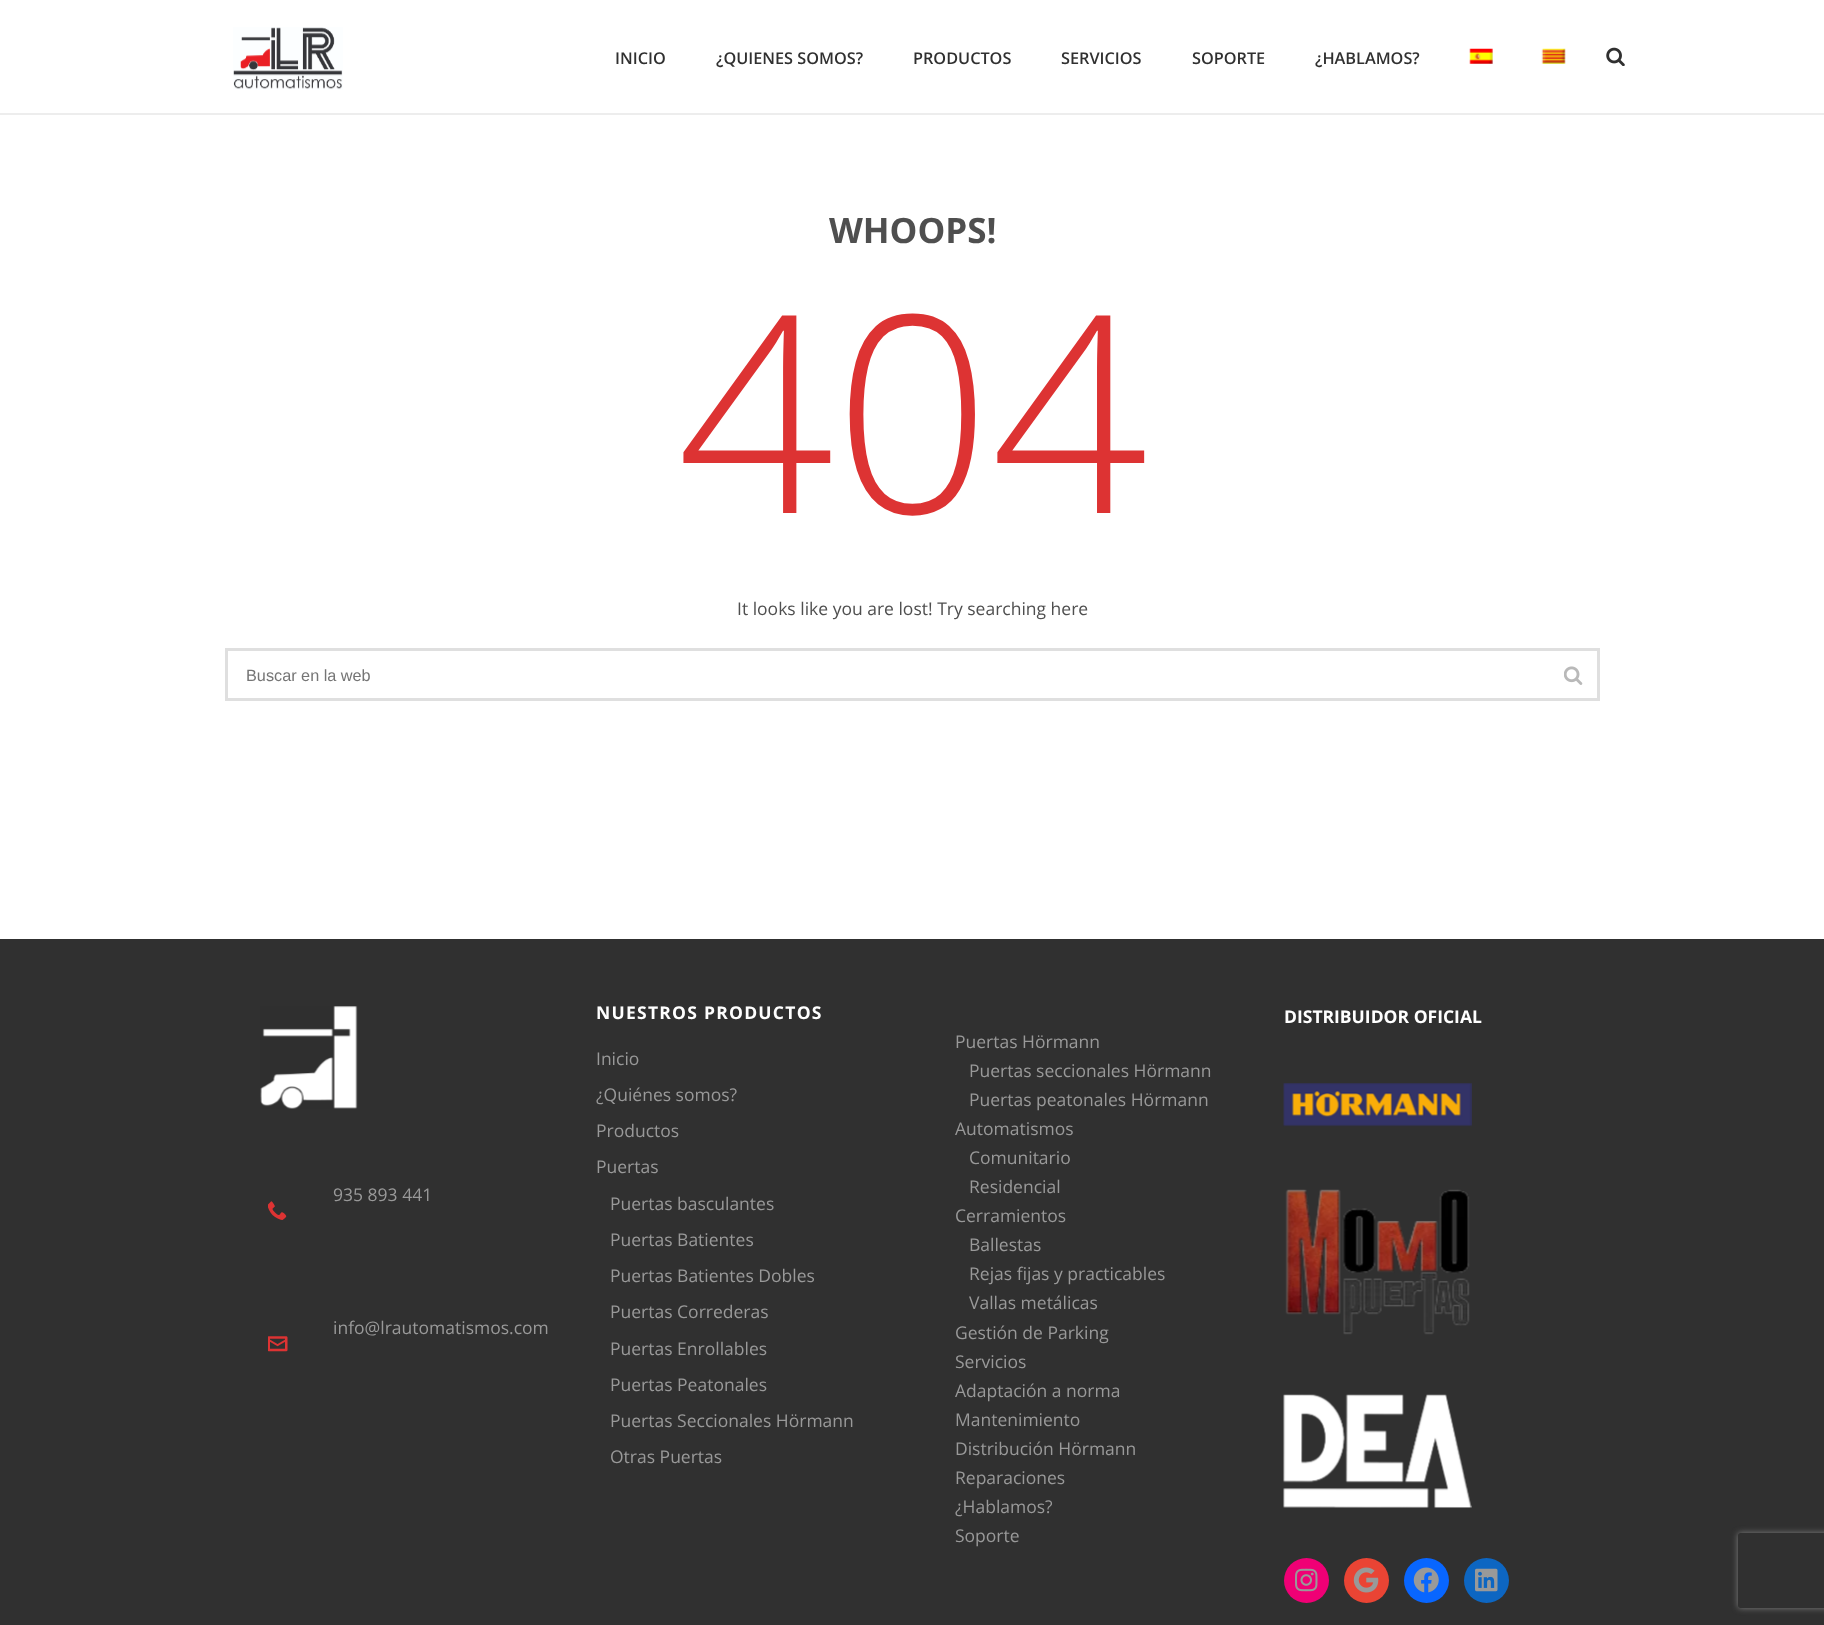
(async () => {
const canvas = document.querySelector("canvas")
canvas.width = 1824
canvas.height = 1625
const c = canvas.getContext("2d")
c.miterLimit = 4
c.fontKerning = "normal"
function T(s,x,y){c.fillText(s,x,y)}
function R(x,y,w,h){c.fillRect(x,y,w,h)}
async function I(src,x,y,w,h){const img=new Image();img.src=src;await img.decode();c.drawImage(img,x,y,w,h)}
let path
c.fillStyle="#fff"
R(0,0,1824,1625)
c.fillStyle="#ededed"
R(0,113,1824,2)
await I("1.png",233,27,110,63)
c.font="600 16.25px Open Sans"
c.fillStyle="#303030"
T("INICIO",615,64)
T("¿QUIENES SOMOS?",716,64)
T("PRODUCTOS",913,64)
T("SERVICIOS",1061,64)
T("SOPORTE",1192,64)
T("¿HABLAMOS?",1315,64)
await I("2.png",1469,48,24,16)
await I("3.png",1541,48,25,16)
await I("4.png",1606,47,19,19)
c.font="bold 35px Open Sans"
c.fillStyle="#4f4f4f"
T("WHOOPS!",829,243)
c.font="300 275px Open Sans"
c.fillStyle="#d33"
T("404",677,513)
c.font="17.5px Open Sans"
c.fillStyle="#4f4f4f"
T("It looks like you are lost! Try searching here",737,615)
c.strokeStyle="#dfdfdf"
c.lineWidth=3
c.strokeRect(226.5,649.5,1372,50)
c.font="16.25px Liberation Sans"
c.fillStyle="#757575"
T("Buscar en la web",246,681)
await I("5.png",1564,666,19,19)
c.fillStyle="#303030"
R(0,939,1824,686)
c.letterSpacing="1.25px"
c.font="bold 17.5px Open Sans"
c.fillStyle="#fff"
T("NUESTROS PRODUCTOS",596,1019)
c.letterSpacing="0px"
c.font="17.5px Open Sans"
c.fillStyle="#999"
T("Inicio",596,1065)
T("¿Quiénes somos?",596,1101)
T("Productos",596,1137)
T("Puertas",596,1173)
T("Puertas basculantes",610,1210)
T("Puertas Batientes",610,1246)
T("Puertas Batientes Dobles",610,1282)
T("Puertas Correderas",610,1318)
T("Puertas Enrollables",610,1355)
T("Puertas Peatonales",610,1391)
T("Puertas Seccionales Hörmann",610,1427)
T("Otras Puertas",610,1463)
c.font="bold 17.5px Open Sans"
c.fillStyle="#fff"
T("DISTRIBUIDOR OFICIAL",1284,1023)
await I("6.png",1283,1083,189,44)
await I("7.png",1285,1189,185,146)
await I("8.png",1283,1394,189,114)
c.fillStyle="#f00075"
c.beginPath()
c.arc(1306.5,1580.5,22.5,0,7)
c.fill()
await I("9.png",1295,1568,23,24)
c.fillStyle="#ea4434"
c.beginPath()
c.arc(1366.5,1580.5,22.5,0,7)
c.fill()
await I("10.png",1353,1567,26,26)
c.fillStyle="#0866ff"
c.beginPath()
c.arc(1426.5,1580.5,22.5,0,7)
c.fill()
await I("11.png",1413,1567,26,26)
c.fillStyle="#0d66c2"
c.beginPath()
c.arc(1486.5,1580.5,22.5,0,7)
c.fill()
await I("12.png",1475,1568,23,24)
await I("13.png",260,1006,98,103)
c.font="17.5px Open Sans"
c.fillStyle="#999"
T("935 893 441",333,1201)
await I("14.png",268,1201,19,19)
T("info@lrautomatismos.com",333,1334)
await I("15.png",268,1336,20,16)
T("Puertas Hörmann",955,1048)
T("Puertas seccionales Hörmann",969,1077)
T("Puertas peatonales Hörmann",969,1106)
T("Automatismos",955,1135)
T("Comunitario",969,1164)
T("Residencial",969,1193)
T("Cerramientos",955,1222)
T("Ballestas",969,1251)
T("Rejas fijas y practicables",969,1280)
T("Vallas metálicas",969,1309)
T("Gestión de Parking",955,1339)
T("Servicios",955,1368)
T("Adaptación a norma",955,1397)
T("Mantenimiento",955,1426)
T("Distribución Hörmann",955,1455)
T("Reparaciones",955,1484)
T("¿Hablamos?",955,1513)
T("Soporte",955,1542)
c.save()
path = new Path2D("M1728 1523h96v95h-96zm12.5 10h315c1.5 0 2.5 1 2.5 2.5v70c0 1.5-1 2.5-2.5 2.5h-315c-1.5 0-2.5-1-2.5-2.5v-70c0-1.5 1-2.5 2.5-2.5z")
c.clip(path,"evenodd")
c.fillStyle="#808080"
c.filter="blur(3px)"
c.beginPath()
c.roundRect(1738,1533,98,75,2.5)
c.fill()
c.filter="none"
c.restore()
})()
